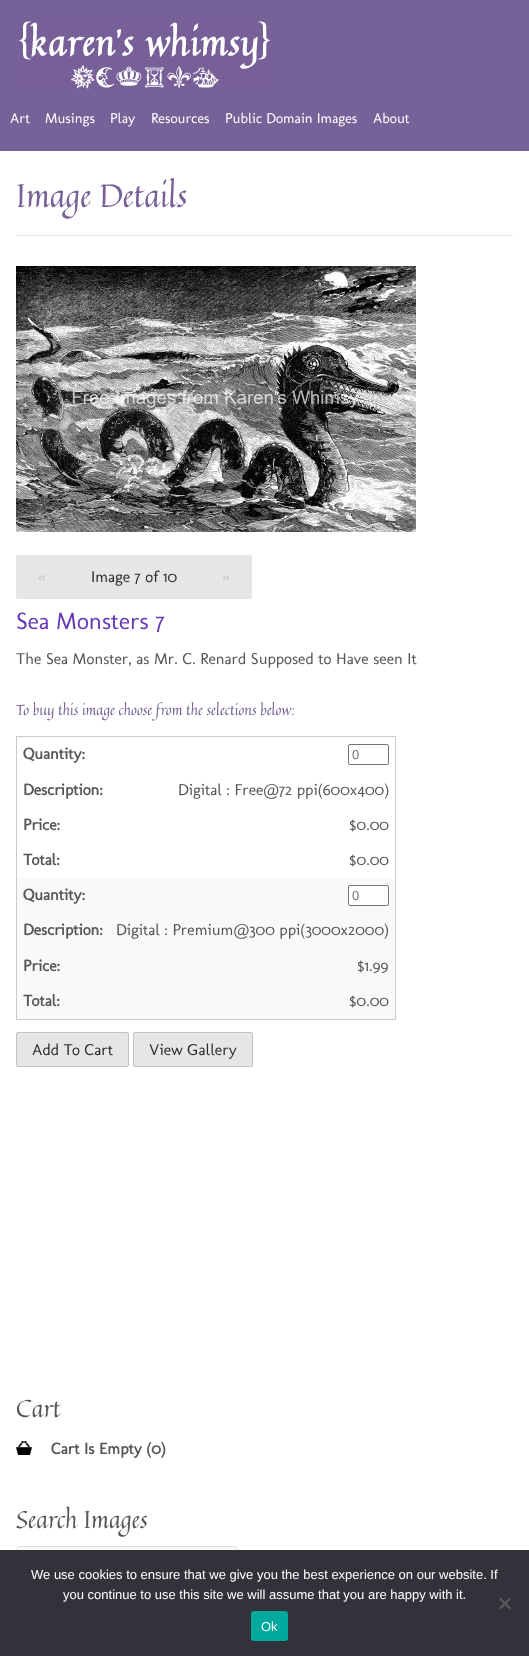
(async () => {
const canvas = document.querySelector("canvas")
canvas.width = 529
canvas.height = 1656
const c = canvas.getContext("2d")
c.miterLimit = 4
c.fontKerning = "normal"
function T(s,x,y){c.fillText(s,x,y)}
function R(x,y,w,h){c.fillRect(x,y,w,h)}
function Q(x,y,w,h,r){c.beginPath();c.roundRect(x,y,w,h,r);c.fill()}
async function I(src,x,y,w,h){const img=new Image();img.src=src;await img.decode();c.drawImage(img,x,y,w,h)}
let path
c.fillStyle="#fff"
R(0,0,529,1656)
c.fillStyle="#766198"
R(0,0,529,151)
await I("1.png",19,21,251,68)
c.font="14.4px Molengo"
c.fillStyle="#fff"
T("Art",10,123)
T("Musings",45,123)
T("Play",110,123)
T("Resources",151,123)
T("Public Domain Images",225,123)
T("About",373,123)
c.fillStyle="#e4e4e4"
R(16,235,497,1)
c.font="32px Quintessential"
c.fillStyle="#766097"
T("Image Details",16,207)
await I("2.png",16,266,400,266)
c.fillStyle="#e6e6e6"
c.beginPath()
c.roundRect(16,555,52,44,[2,0,0,2])
c.fill()
c.font="16px Molengo"
c.fillStyle="#c0c1c3"
T("«",38,582)
c.fillStyle="#e6e6e6"
R(68,555,131,44)
c.fillStyle="#2e2e2e"
T("Image 7 of 10",91,582)
c.fillStyle="#e6e6e6"
c.beginPath()
c.roundRect(199,555,53,44,[0,2,2,0])
c.fill()
c.fillStyle="#c0c1c3"
T("»",222,582)
c.font="24px Molengo"
c.fillStyle="#673ab7"
T("Sea Monsters 7",16,629)
c.font="16px Molengo"
c.fillStyle="#565656"
T("The Sea Monster, as Mr. C. Renard Supposed to Have seen It",16,664)
c.font="14.4px Quintessential"
c.fillStyle="#766097"
T("To buy this image choose from the selections below:",16,715)
c.fillStyle="#cbcbcb"
R(16,736,380,1)
R(395,736,1,284)
R(16,1019,380,1)
R(16,736,1,284)
c.font="bold 16px Molengo"
c.fillStyle="#565656"
T("Quantity:",23,759)
c.beginPath()
c.roundRect(348.5,744.5,40,20,1.5)
c.strokeStyle="#767676"
c.stroke()
c.font="13px Liberation Sans"
c.fillStyle="#757575"
T("0",352,759)
c.font="bold 16px Molengo"
c.fillStyle="#565656"
T("Description:",23,795)
c.font="16px Molengo"
T("Digital : Free@72 ppi(600x400)",178,795)
c.font="bold 16px Molengo"
T("Price:",23,830)
c.font="16px Molengo"
T("$0.00",349,830)
c.font="bold 16px Molengo"
T("Total:",23,865)
c.font="16px Molengo"
T("$0.00",349,865)
c.fillStyle="#f9f9f9"
R(17,878,378,141)
c.font="bold 16px Molengo"
c.fillStyle="#565656"
T("Quantity:",23,900)
c.fillStyle="#fff"
c.beginPath()
c.roundRect(348.5,885.5,40,20,1.5)
c.fill()
c.stroke()
c.font="13px Liberation Sans"
c.fillStyle="#757575"
T("0",352,900)
c.font="bold 16px Molengo"
c.fillStyle="#565656"
T("Description:",23,935)
c.font="16px Molengo"
T("Digital : Premium@300 ppi(3000x2000)",116,935)
c.font="bold 16px Molengo"
T("Price:",23,971)
c.font="16px Molengo"
T("$1.99",357,971)
c.font="bold 16px Molengo"
T("Total:",23,1006)
c.font="16px Molengo"
T("$0.00",349,1006)
c.fillStyle="#e6e6e6"
Q(16,1032,113,35,2)
c.beginPath()
c.roundRect(16.5,1032.5,112,34,1.5)
c.strokeStyle="#00000026"
c.stroke()
c.fillStyle="#2e2e2e"
T("Add To Cart",32,1055)
c.fillStyle="#e6e6e6"
Q(133,1032,120,35,2)
c.beginPath()
c.roundRect(133.5,1032.5,119,34,1.5)
c.stroke()
c.fillStyle="#2e2e2e"
T("View Gallery",149,1055)
c.font="24px Quintessential"
c.fillStyle="#565656"
T("Cart",16,1417)
await I("3.png",16,1441,16,14)
c.font="bold 16px Molengo"
T("Cart Is Empty (0)",51,1454)
c.font="24px Quintessential"
T("Search Images",16,1528)
c.fillStyle="#fafafa"
c.beginPath()
c.roundRect(16.5,1546.5,221,36,4.5)
c.fill()
c.strokeStyle="#ddd"
c.stroke()
c.fillStyle="#32323a"
R(0,1550,529,106)
c.font="13px Liberation Sans"
c.fillStyle="#fff"
T("We use cookies to ensure that we give you the best experience on our website. If",31,1579)
T("you continue to use this site we will assume that you are happy with it.",63,1599)
c.fillStyle="#59595d"
path = new Path2D("M509.5 1597.5l1.5 1.5l-10.5 10.5l-1.5-1.5z")
c.fill(path)
path = new Path2D("M499 1599l1.5-1.5l10.5 10.5l-1.5 1.5z")
c.fill(path)
c.fillStyle="#00a99d"
Q(251,1611,37,30,3)
c.fillStyle="#fff"
T("Ok",261,1631)
})()
